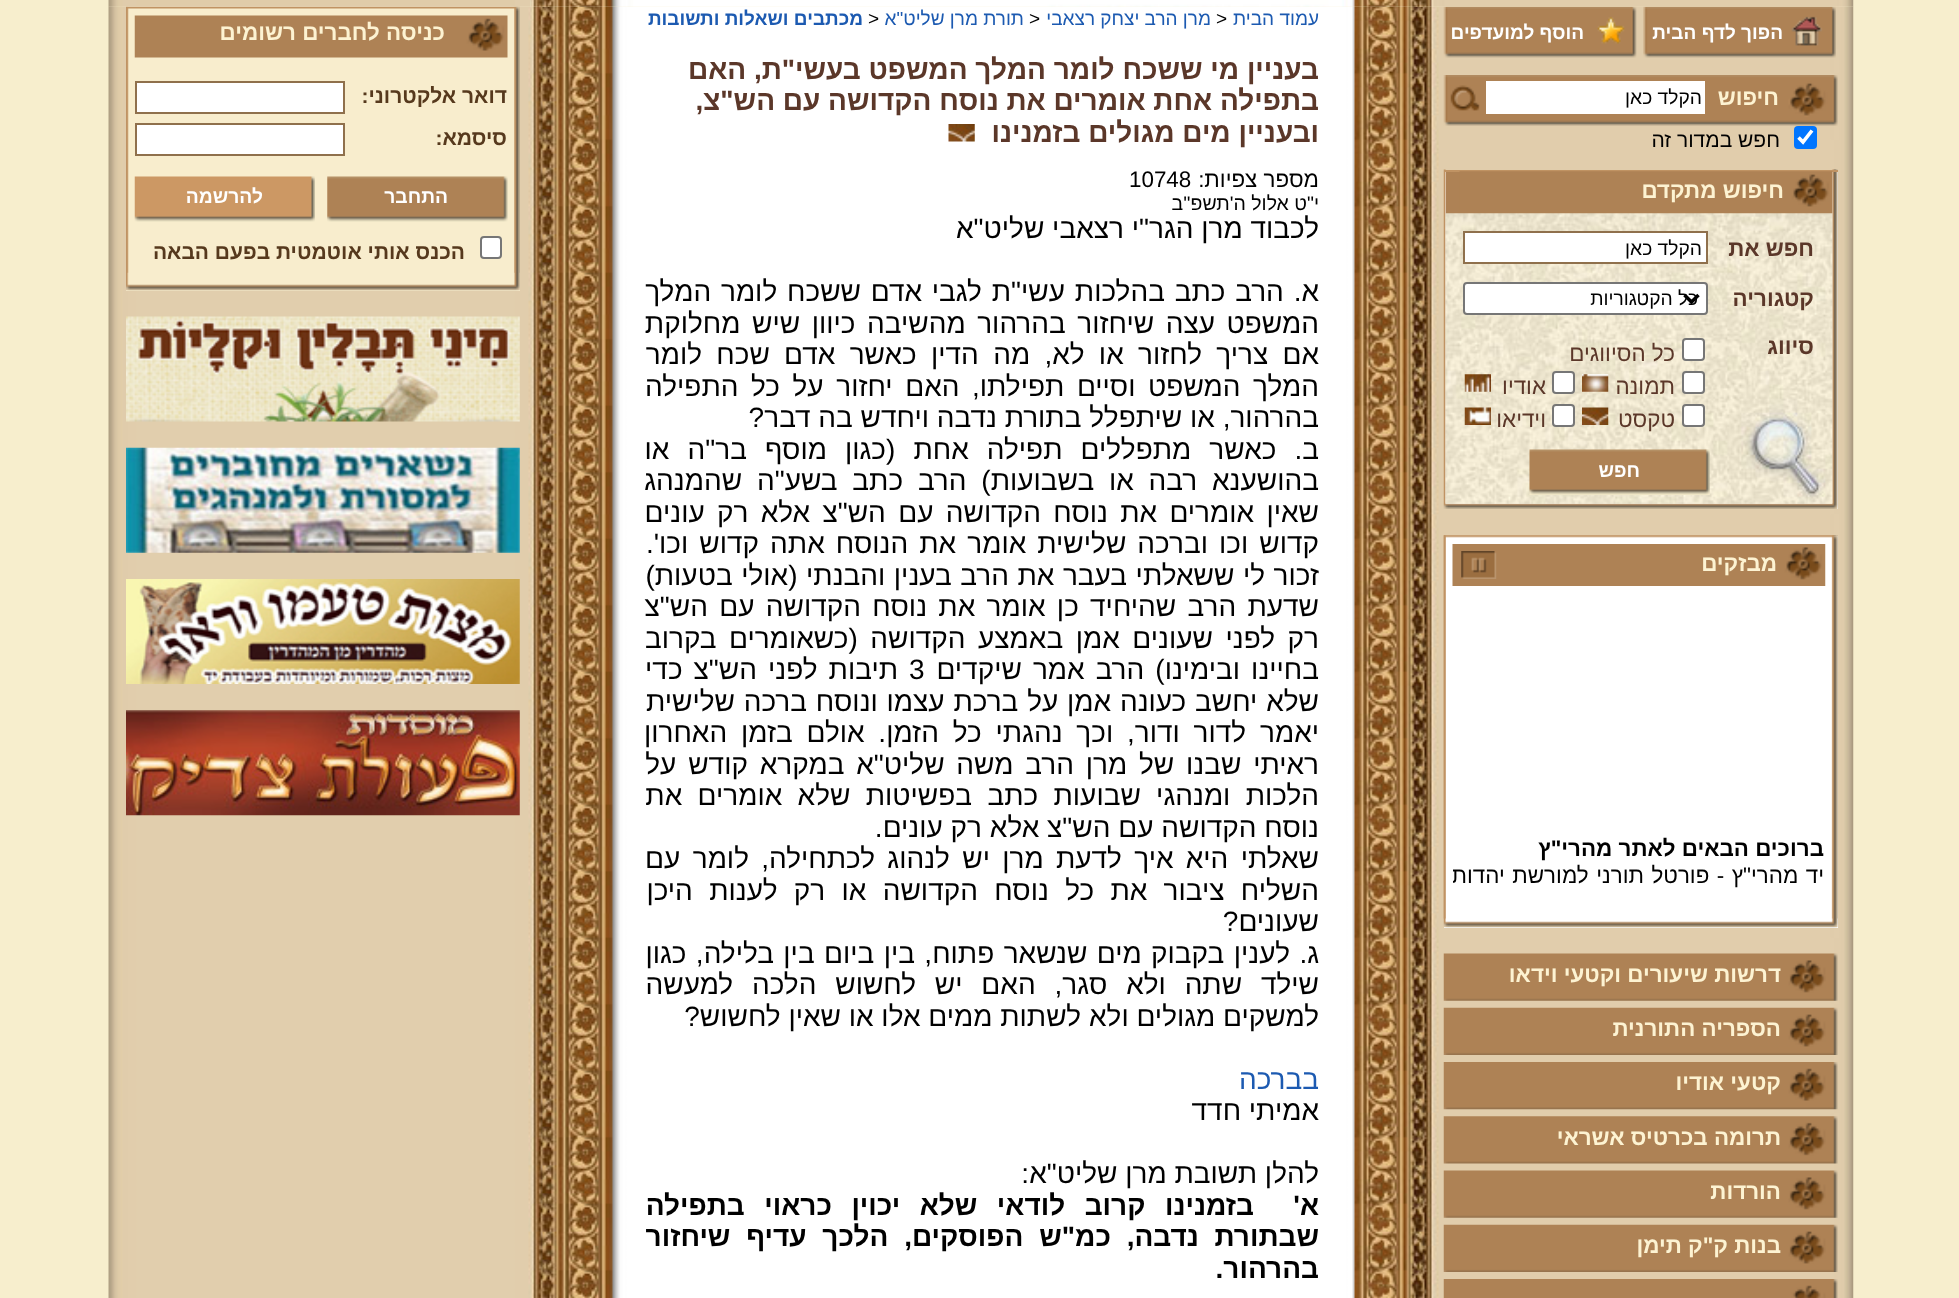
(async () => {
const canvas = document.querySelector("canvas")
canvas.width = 1959
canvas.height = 1298
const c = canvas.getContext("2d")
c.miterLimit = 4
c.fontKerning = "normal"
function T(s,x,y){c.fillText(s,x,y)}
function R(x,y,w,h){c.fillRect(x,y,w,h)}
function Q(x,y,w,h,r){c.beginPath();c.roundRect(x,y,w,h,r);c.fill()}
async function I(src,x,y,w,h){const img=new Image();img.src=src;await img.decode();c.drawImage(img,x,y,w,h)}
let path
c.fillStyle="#f7eecd"
R(0,0,1959,1298)
await I("4.png",108,6,1746,1292)
await I("5.png",1643,6,193,52)
await I("6.png",1443,6,194,52)
await I("1.png",1431,0,423,7)
await I("2.png",530,0,902,7)
c.fillStyle="#f8edcd"
R(126,7,394,284)
await I("29.png",126,6,394,285)
await I("30.png",126,6,394,267)
await I("3.png",108,0,422,7)
c.direction="rtl"
c.font="bold 19px Liberation Sans"
c.fillStyle="#fff"
T("הפוך לדף הבית",1783,39)
T("הוסף למועדפים",1584,39)
await I("7.png",1443,75,395,51)
c.font="bold 22.4px Liberation Sans"
c.fillStyle="#fdf3d2"
T("חיפוש",1779,105)
c.fillStyle="#fff"
R(1486,81,219,33)
c.font="19.25px Liberation Sans"
c.fillStyle="#000"
T("הקלד כאן",1702,104)
await I("8.png",1450,85,30,26)
c.fillStyle="#0075ff"
Q(1794,126,23,23,4)
path = new Path2D("M1798.5 137.5l4.5 4.5l9-11.5")
c.strokeStyle="#fff"
c.lineWidth=3.6
c.stroke(path)
c.font="21px Liberation Sans"
c.fillStyle="#000"
T("חפש במדור זה",1780,147)
c.fillStyle="#fff"
R(1445,172,393,337)
await I("9.png",1443,169,395,340)
c.fillStyle="#c09363"
R(1444,170,394,2)
c.fillStyle="#ae8255"
R(1446,172,386,42)
await I("10.png",1459,171,374,43)
c.font="bold 22.4px Liberation Sans"
c.fillStyle="#fdf3d2"
T("חיפוש מתקדם",1784,198)
await I("11.png",1445,213,388,291)
c.fillStyle="#5b3729"
T("חפש את",1814,256)
c.fillStyle="#fff"
c.beginPath()
c.rect(1464,232,243,31)
c.fill()
c.strokeStyle="#8f704c"
c.lineWidth=2
c.stroke()
c.font="19.25px Liberation Sans"
c.fillStyle="#000"
T("הקלד כאן",1702,255)
c.font="bold 22.4px Liberation Sans"
c.fillStyle="#5b3729"
T("קטגוריה",1814,306)
c.fillStyle="#fff"
c.beginPath()
c.roundRect(1464,283,243,31,3)
c.fill()
c.strokeStyle="#767676"
c.stroke()
path = new Path2D("M1684.5 295l7 7l7-7")
c.strokeStyle="#000"
c.lineWidth=3.5
c.stroke(path)
c.font="19.25px Liberation Sans"
c.fillStyle="#000"
T("כל הקטגוריות",1698,305)
c.font="bold 22.4px Liberation Sans"
c.fillStyle="#5b3729"
T("סיווג",1814,354)
c.fillStyle="#fff"
c.beginPath()
c.roundRect(1683,339,21,21,3)
c.fill()
c.strokeStyle="#767676"
c.lineWidth=2
c.stroke()
c.font="22.4px Liberation Sans"
c.fillStyle="#5b3729"
T("כל הסיווגים",1675,361)
c.fillStyle="#fff"
c.beginPath()
c.roundRect(1683,372,21,21,3)
c.fill()
c.stroke()
c.fillStyle="#5b3729"
T("תמונה",1675,394)
await I("12.png",1582,374,27,18)
c.fillStyle="#fff"
c.beginPath()
c.roundRect(1553,372,21,21,3)
c.fill()
c.stroke()
c.fillStyle="#5b3729"
T("אודיו",1546,394)
await I("13.png",1464,374,27,18)
c.fillStyle="#fff"
c.beginPath()
c.roundRect(1683,405,21,21,3)
c.fill()
c.stroke()
c.fillStyle="#5b3729"
T("טקסט",1675,427)
await I("14.png",1582,407,27,18)
c.fillStyle="#fff"
c.beginPath()
c.roundRect(1553,405,21,21,3)
c.fill()
c.stroke()
c.fillStyle="#5b3729"
T("וידיאו",1546,427)
await I("15.png",1464,407,27,18)
await I("16.png",1529,449,181,46)
c.font="bold 19.25px Liberation Sans"
c.fillStyle="#fff"
T("חפש",1640,477)
R(1444,536,394,392)
await I("17.png",1443,535,395,393)
await I("18.png",1443,535,395,384)
await I("19.png",1452,544,374,42)
c.font="bold 22.4px Liberation Sans"
c.fillStyle="#fdf3d2"
T("מבזקים",1777,571)
await I("20.png",1461,551,36,28)
c.fillStyle="#000"
T("ברוכים הבאים לאתר מהרי\"ץ",1824,856)
c.save()
c.beginPath()
c.rect(1453,613,372,280)
c.clip()
c.wordSpacing="1.25px"
c.font="22.4px Liberation Sans"
T("יד מהרי\"ץ - פורטל תורני למורשת יהדות",1824,883)
c.restore()
await I("21.png",1443,953,395,48)
c.fillStyle="#fdf3d2"
T("דרשות שיעורים וקטעי וידאו",1781,982)
await I("22.png",1443,1007,395,48)
T("הספריה התורנית",1781,1036)
await I("23.png",1443,1062,395,48)
T("קטעי אודיו",1781,1090)
await I("24.png",1443,1116,395,48)
T("תרומה בכרטיס אשראי",1781,1145)
await I("25.png",1443,1170,395,48)
T("הורדות",1781,1199)
await I("26.png",1443,1224,395,48)
T("בנות ק\"ק תימן",1781,1253)
await I("27.png",1443,1279,395,19)
c.font="19px Liberation Sans"
c.fillStyle="#1c5ab1"
T("עמוד הבית",1319,25)
c.direction="ltr"
c.fillStyle="#000"
T(">",1216,25)
c.direction="rtl"
c.fillStyle="#1c5ab1"
T("מרן הרב יצחק רצאבי",1211,25)
c.direction="ltr"
c.fillStyle="#000"
T(">",1029,25)
c.direction="rtl"
c.fillStyle="#1c5ab1"
T("תורת מרן שליט\"א",1024,25)
c.direction="ltr"
c.fillStyle="#000"
T(">",868,25)
c.direction="rtl"
c.font="bold 19px Liberation Sans"
c.fillStyle="#1c5ab1"
T("מכתבים ושאלות ותשובות",863,25)
c.font="bold 28px Liberation Sans"
c.fillStyle="#5b3729"
T("בעניין מי ששכח לומר המלך המשפט בעשי\"ת, האם",1319,79)
T("בתפילה אחת אומרים את נוסח הקדושה עם הש\"צ,",1319,110)
T("ובעניין מים מגולים בזמנינו",1319,142)
await I("28.png",948,124,27,18)
c.font="22.4px Liberation Sans"
c.fillStyle="#000"
T("מספר צפיות:",1319,187)
c.direction="ltr"
T("10748",1129,187)
c.direction="rtl"
c.font="19.5px Liberation Sans"
T("י\"ט אלול ה'תשפ''ב",1319,210)
c.font="28px Liberation Sans"
T("לכבוד מרן הגר\"י רצאבי שליט\"א",1319,238)
c.wordSpacing="2px"
T("א. הרב כתב בהלכות עשי\"ת לגבי אדם ששכח לומר המלך",1319,301)
c.wordSpacing="3.75px"
T("המשפט עצה שיחזור בהרהור מהשיבה כיוון שיש מחלוקת",1319,333)
c.wordSpacing="6.5px"
T("אם צריך לחזור או לא, מה הדין כאשר אדם שכח לומר",1319,364)
c.wordSpacing="4.75px"
T("המלך המשפט וסיים תפילתו, האם יחזור על כל התפילה",1319,396)
c.wordSpacing="0px"
T("בהרהור, או שיתפלל בתורת נדבה ויחדש בה דבר?",1319,427)
c.wordSpacing="10.25px"
T("ב. כאשר מתפללים תפילה אחת (כגון מוסף בר\"ה או",1319,459)
c.wordSpacing="7px"
T("בהושענא רבה או בשבועות) הרב כתב בשע\"ה שהמנהג",1319,490)
c.wordSpacing="4.5px"
T("שאין אומרים את נוסח הקדושה עם הש\"צ אלא רק עונים",1319,522)
c.wordSpacing="3.25px"
T("קדוש וכו וברכה שלישית אומר את הנוסח אתה קדוש וכו'.",1319,553)
c.wordSpacing="0.75px"
T("זכור לי ששאלתי בעבר את הרב בענין והבנתי (אולי בטעות)",1319,585)
c.wordSpacing="3.5px"
T("שדעת הרב שהיחיד כן אומר את נוסח הקדושה עם הש\"צ",1319,616)
c.wordSpacing="4.75px"
T("רק לפני שעונים אמן באמצע הקדושה (כשאומרים בקרוב",1319,648)
c.wordSpacing="3.25px"
T("בחיינו ובימינו) הרב אמר שיקדים",1319,679)
c.wordSpacing="0px"
c.direction="ltr"
T("3",909,679)
c.wordSpacing="3.25px"
c.direction="rtl"
T("תיבות לפני הש\"צ כדי",898,679)
c.wordSpacing="1px"
T("שלא יחשב כעונה אמן על ברכת עצמו ונוסח ברכה שלישית",1319,711)
c.wordSpacing="6px"
T("יאמר לדור ודור, וכך נהגתי כל הזמן. אולם בזמן האחרון",1319,742)
c.wordSpacing="4px"
T("ראיתי שבנו של מרן הרב משה שליט\"א במקרא קודש על",1319,774)
c.wordSpacing="7.5px"
T("הלכות ומנהגי שבועות כתב בפשיטות שלא אומרים את",1319,805)
c.wordSpacing="0px"
T("נוסח הקדושה עם הש\"צ אלא רק עונים.",1319,837)
c.wordSpacing="4.5px"
T("שאלתי היא איך לדעת מרן יש לנהוג לכתחילה, לומר עם",1319,868)
c.wordSpacing="8.5px"
T("השליח ציבור את כל נוסח הקדושה או רק לענות היכן",1319,900)
c.wordSpacing="0px"
T("שעונים?",1319,931)
c.wordSpacing="1.6px"
T("ג. לענין בקבוק מים שנשאר פתוח, בין ביום בין בלילה, כגון",1319,963)
c.wordSpacing="11px"
T("שילד שתה ולא סגר, האם יש לחשוש הלכה למעשה",1319,994)
c.wordSpacing="0px"
T("למשקים מגולים ולא לשתות ממים אלו או שאין לחשוש?",1319,1026)
c.fillStyle="#1c5ab1"
T("בברכה",1319,1089)
c.fillStyle="#000"
T("אמיתי חדד",1319,1120)
T("להלן תשובת מרן שליט\"א:",1319,1183)
c.font="bold 28px Liberation Sans"
T("א'",1319,1215)
c.wordSpacing="11.75px"
T("בזמנינו קרוב לודאי שלא יכוין כראוי בתפילה",1254,1215)
c.wordSpacing="8px"
T("שבתורת נדבה, כמ\"ש הפוסקים, הלכך עדיף שיחזור",1319,1246)
c.wordSpacing="0px"
T("בהרהור.",1319,1278)
await I("31.png",134,15,374,43)
c.font="bold 22.4px Liberation Sans"
c.fillStyle="#fdf3d2"
T("כניסה לחברים רשומים",445,40)
c.font="bold 21px Liberation Sans"
c.fillStyle="#56391d"
T("דואר אלקטרוני:",507,103)
c.fillStyle="#fff"
c.beginPath()
c.rect(136,82,208,31)
c.fill()
c.strokeStyle="#8f704c"
c.stroke()
c.fillStyle="#56391d"
T("סיסמא:",507,145)
c.fillStyle="#fff"
c.beginPath()
c.rect(136,124,208,31)
c.fill()
c.stroke()
await I("32.png",327,176,181,46)
c.font="bold 19.25px Liberation Sans"
T("התחבר",448,203)
await I("33.png",134,176,181,46)
T("להרשמה",263,203)
c.beginPath()
c.roundRect(481,237,20,21,3)
c.fill()
c.strokeStyle="#767676"
c.stroke()
c.font="bold 21px Liberation Sans"
c.fillStyle="#56391d"
T("הכנס אותי אוטמטית בפעם הבאה",465,259)
await I("34.png",126,316,394,106)
await I("35.png",126,447,394,106)
await I("36.png",126,579,394,105)
await I("37.png",126,710,394,106)
})()
